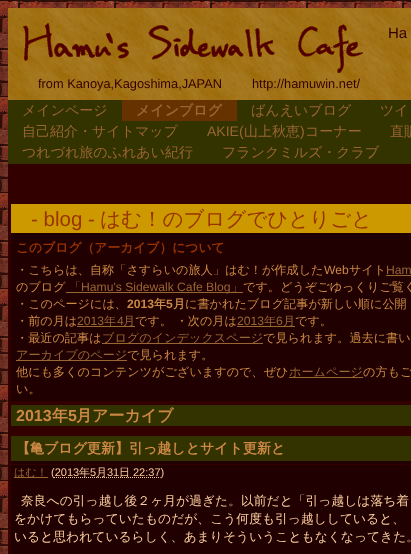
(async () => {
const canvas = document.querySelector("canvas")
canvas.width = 411
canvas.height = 554
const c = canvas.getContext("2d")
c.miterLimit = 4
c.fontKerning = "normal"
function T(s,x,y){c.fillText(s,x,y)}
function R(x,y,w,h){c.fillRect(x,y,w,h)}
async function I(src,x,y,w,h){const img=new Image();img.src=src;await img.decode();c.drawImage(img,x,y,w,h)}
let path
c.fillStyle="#fff"
R(0,0,411,554)
await I("1.png",0,0,411,554)
c.fillStyle="#300"
R(8,164,403,390)
await I("2.png",8,8,403,92)
await I("3.png",23,23,340,50)
c.font="15px Liberation Sans"
T("Ha",388,38)
c.font="12.8px Liberation Sans"
T("from Kanoya,Kagoshima,JAPAN",38,88)
T("http://hamuwin.net/",252,88)
c.fillStyle="#330"
R(8,100,403,64)
c.font="500 14px WenQuanYi Zen Hei"
c.fillStyle="#963"
T("メインページ",22,115)
c.fillStyle="#630"
R(122,100,115,21)
c.font="bold 14px WenQuanYi Zen Hei"
c.fillStyle="#963"
T("メインブログ",136,115)
c.font="500 14px WenQuanYi Zen Hei"
T("ばんえいブログ",251,115)
T("ツイ",380,115)
T("自己紹介・サイトマップ",22,136)
c.font="14px Liberation Sans"
T("AKIE(",207,136)
c.font="500 14px WenQuanYi Zen Hei"
T("山上秋恵",244,136)
c.font="14px Liberation Sans"
T(")",300,136)
c.font="500 14px WenQuanYi Zen Hei"
T("コーナー",305,136)
T("直販",390,136)
T("つれづれ旅のふれあい紀行",22,157)
T("フランクミルズ・クラブ",222,157)
c.fillStyle="#200000"
R(11,233,400,168)
c.fillStyle="#c90"
R(11,204,400,29)
c.font="20.5px Liberation Sans"
c.fillStyle="#930"
T("- blog -",31,226)
c.font="500 20.5px WenQuanYi Zen Hei"
T("はむ！のブログでひとりごと",100,226)
c.font="bold 12.8px WenQuanYi Zen Hei"
T("このブログ（アーカイブ）について",16,252)
c.font="500 12.15px WenQuanYi Zen Hei"
c.fillStyle="#c84"
T("・こちらは、自称「さすらいの旅人」はむ！が作成した",16,274)
c.font="12.15px Liberation Sans"
T("Web",324,274)
c.font="500 12.15px WenQuanYi Zen Hei"
T("サイト",349,274)
c.font="12.15px Liberation Sans"
c.fillStyle="#963"
T("Ham",386,274)
R(386,275,25,1)
c.font="500 12.15px WenQuanYi Zen Hei"
c.fillStyle="#c84"
T("のブログ",16,291)
c.fillStyle="#963"
T("「",69,291)
R(66,292,177,1)
c.font="12.15px Liberation Sans"
T("Hamu's Sidewalk Cafe Blog",81,291)
c.font="500 12.15px WenQuanYi Zen Hei"
T("」",231,291)
c.fillStyle="#c84"
T("です。どうぞごゆっくりご覧く",243,291)
T("・このページには、",16,308)
c.font="bold 12.15px Liberation Sans"
T("2013",127,308)
c.font="bold 12.15px WenQuanYi Zen Hei"
T("年",154,308)
c.font="bold 12.15px Liberation Sans"
T("5",166,308)
c.font="bold 12.15px WenQuanYi Zen Hei"
T("月",173,308)
c.font="500 12.15px WenQuanYi Zen Hei"
T("に書かれたブログ記事が新しい順に公開",185,308)
T("・前の月は",16,325)
c.font="12.15px Liberation Sans"
c.fillStyle="#963"
T("2013",77,325)
R(77,326,58,1)
c.font="500 12.15px WenQuanYi Zen Hei"
T("年",104,325)
c.font="12.15px Liberation Sans"
T("4",117,325)
c.font="500 12.15px WenQuanYi Zen Hei"
T("月",123,325)
c.fillStyle="#c84"
T("です。 ・次の月は",135,325)
c.font="12.15px Liberation Sans"
c.fillStyle="#963"
T("2013",237,325)
R(237,326,58,1)
c.font="500 12.15px WenQuanYi Zen Hei"
T("年",264,325)
c.font="12.15px Liberation Sans"
T("6",276,325)
c.font="500 12.15px WenQuanYi Zen Hei"
T("月",283,325)
c.fillStyle="#c84"
T("です。",295,325)
T("・最近の記事は",16,342)
c.fillStyle="#963"
R(102,343,161,1)
T("ブログのインデックスページ",102,342)
c.fillStyle="#c84"
T("で見られます。過去に書い",263,342)
c.fillStyle="#963"
R(16,360,111,1)
T("アーカイブのページ",16,359)
c.fillStyle="#c84"
T("で見られます。",127,359)
T("他にも多くのコンテンツがございますので、ぜひ",16,376)
c.fillStyle="#963"
R(289,377,74,1)
T("ホームページ",289,376)
c.fillStyle="#c84"
T("の方もご",363,376)
T("い。",16,393)
c.fillStyle="#330"
R(11,405,400,21)
c.font="bold 16px Liberation Sans"
c.fillStyle="#c84"
T("2013",16,421)
c.font="bold 16px WenQuanYi Zen Hei"
T("年",52,421)
c.font="bold 16px Liberation Sans"
T("5",68,421)
c.font="bold 16px WenQuanYi Zen Hei"
T("月アーカイブ",76,421)
c.fillStyle="#200000"
R(11,461,400,93)
c.fillStyle="#330"
R(11,436,400,25)
c.font="bold 14px WenQuanYi Zen Hei"
c.fillStyle="#c84"
T("【亀ブログ更新】引っ越しとサイト更新と",16,453)
c.fillStyle="#300"
R(11,464,400,1)
c.fillStyle="#963"
R(14,477,34,1)
c.font="500 11px WenQuanYi Zen Hei"
T("はむ！",14,476)
c.font="11px Liberation Sans"
c.fillStyle="#f9cb9c"
T("(2013",51,476)
path = new Path2D("M54 477.5h106.5")
c.strokeStyle="#f9cb9c"
c.setLineDash([1,1])
c.stroke(path)
c.font="500 11px WenQuanYi Zen Hei"
T("年",79,476)
c.font="11px Liberation Sans"
T("5",90,476)
c.font="500 11px WenQuanYi Zen Hei"
T("月",96,476)
c.font="11px Liberation Sans"
T("31",107,476)
c.font="500 11px WenQuanYi Zen Hei"
T("日",119,476)
c.font="11px Liberation Sans"
T("22:37)",133,476)
c.font="500 12.8px WenQuanYi Zen Hei"
T("奈良への引っ越し後２ヶ月が過ぎた。以前だと「引っ越しは落ち着",21,505)
T("をかけてもらっていたものだが、こう何度も引っ越ししていると、",14,523)
T("いると思われているらしく、あまりそういうこともなくなってきた。",14,541)
})()
